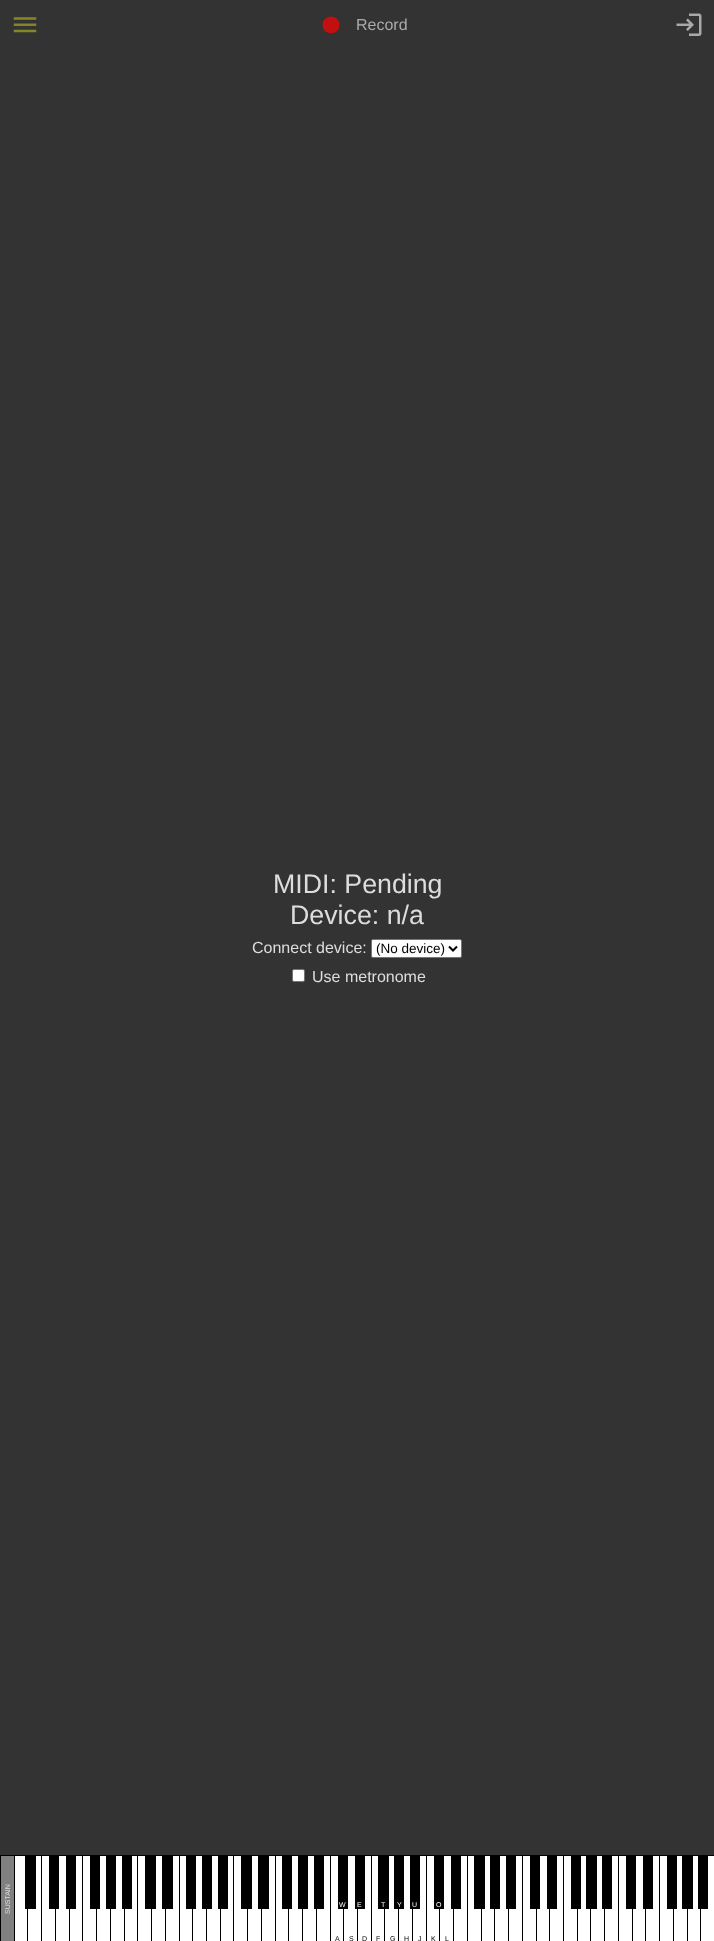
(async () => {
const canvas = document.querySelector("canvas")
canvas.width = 714
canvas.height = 1941
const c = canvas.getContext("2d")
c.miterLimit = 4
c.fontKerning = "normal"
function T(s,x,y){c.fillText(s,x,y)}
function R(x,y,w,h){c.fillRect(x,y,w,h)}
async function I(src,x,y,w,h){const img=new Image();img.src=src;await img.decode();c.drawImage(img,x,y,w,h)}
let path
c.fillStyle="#333"
R(0,0,714,1941)
await I("1.png",13,17,24,16)
c.fillStyle="#c20f0f"
path = new Path2D("M339.5 25c0 11-17 11-17 0c0-11.5 17-11.5 17 0z")
c.fill(path)
c.font="16px Liberation Sans"
c.fillStyle="#aaa"
T("Record",356,30)
await I("2.png",676,13,26,23)
c.font="26.75px Liberation Sans"
c.fillStyle="#ddd"
T("MIDI: Pending",273,893)
T("Device: n/a",290,924)
c.font="16px Liberation Sans"
T("Connect device:",252,953)
c.fillStyle="#fff"
c.beginPath()
c.roundRect(371.5,939.5,90,18,1.5)
c.fill()
c.strokeStyle="#767676"
c.stroke()
path = new Path2D("M449 946.5l4 4l4-4")
c.strokeStyle="#000"
c.lineWidth=2
c.stroke(path)
c.font="13.5px Liberation Sans"
c.fillStyle="#000"
T("(No device)",376,953)
c.fillStyle="#fff"
c.beginPath()
c.roundRect(292.5,969.5,12,12,1.5)
c.fill()
c.strokeStyle="#767676"
c.lineWidth=1
c.stroke()
c.font="16px Liberation Sans"
c.fillStyle="#ddd"
T("Use metronome",312,982)
c.fillStyle="#808080"
R(1,1856,13,85)
c.strokeStyle="#000"
c.strokeRect(.5,1855.5,15,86)
c.fillStyle="#fff"
R(15,1856,12,85)
c.strokeRect(14.5,1855.5,14,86)
R(28,1856,13,85)
c.strokeRect(27.5,1855.5,15,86)
R(42,1856,13,85)
c.strokeRect(41.5,1855.5,15,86)
R(56,1856,13,85)
c.strokeRect(55.5,1855.5,15,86)
R(70,1856,12,85)
c.strokeRect(69.5,1855.5,14,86)
R(83,1856,13,85)
c.strokeRect(82.5,1855.5,15,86)
R(97,1856,13,85)
c.strokeRect(96.5,1855.5,15,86)
R(111,1856,13,85)
c.strokeRect(110.5,1855.5,15,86)
R(125,1856,12,85)
c.strokeRect(124.5,1855.5,14,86)
R(138,1856,13,85)
c.strokeRect(137.5,1855.5,15,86)
R(152,1856,13,85)
c.strokeRect(151.5,1855.5,15,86)
c.beginPath()
c.rect(165.5,1855.5,14,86)
c.fill()
c.stroke()
R(180,1856,12,85)
c.strokeRect(179.5,1855.5,14,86)
R(193,1856,13,85)
c.strokeRect(192.5,1855.5,15,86)
R(207,1856,13,85)
c.strokeRect(206.5,1855.5,15,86)
R(221,1856,12,85)
c.strokeRect(220.5,1855.5,14,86)
R(234,1856,13,85)
c.strokeRect(233.5,1855.5,15,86)
R(248,1856,13,85)
c.strokeRect(247.5,1855.5,15,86)
R(262,1856,13,85)
c.strokeRect(261.5,1855.5,15,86)
R(276,1856,12,85)
c.strokeRect(275.5,1855.5,14,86)
R(289,1856,13,85)
c.strokeRect(288.5,1855.5,15,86)
R(303,1856,13,85)
c.strokeRect(302.5,1855.5,15,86)
R(317,1856,13,85)
c.strokeRect(316.5,1855.5,15,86)
R(331,1856,12,85)
c.strokeRect(330.5,1855.5,14,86)
R(344,1856,13,85)
c.strokeRect(343.5,1855.5,15,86)
R(358,1856,13,85)
c.strokeRect(357.5,1855.5,15,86)
R(372,1856,12,85)
c.strokeRect(371.5,1855.5,14,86)
R(385,1856,13,85)
c.strokeRect(384.5,1855.5,15,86)
R(399,1856,13,85)
c.strokeRect(398.5,1855.5,15,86)
R(413,1856,13,85)
c.strokeRect(412.5,1855.5,15,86)
R(427,1856,12,85)
c.strokeRect(426.5,1855.5,14,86)
R(440,1856,13,85)
c.strokeRect(439.5,1855.5,15,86)
R(454,1856,13,85)
c.strokeRect(453.5,1855.5,15,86)
R(468,1856,13,85)
c.strokeRect(467.5,1855.5,15,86)
R(482,1856,12,85)
c.strokeRect(481.5,1855.5,14,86)
R(495,1856,13,85)
c.strokeRect(494.5,1855.5,15,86)
R(509,1856,13,85)
c.strokeRect(508.5,1855.5,15,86)
c.beginPath()
c.rect(522.5,1855.5,14,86)
c.fill()
c.stroke()
R(537,1856,12,85)
c.strokeRect(536.5,1855.5,14,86)
R(550,1856,13,85)
c.strokeRect(549.5,1855.5,15,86)
R(564,1856,13,85)
c.strokeRect(563.5,1855.5,15,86)
R(578,1856,12,85)
c.strokeRect(577.5,1855.5,14,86)
R(591,1856,13,85)
c.strokeRect(590.5,1855.5,15,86)
R(605,1856,13,85)
c.strokeRect(604.5,1855.5,15,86)
R(619,1856,13,85)
c.strokeRect(618.5,1855.5,15,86)
R(633,1856,12,85)
c.strokeRect(632.5,1855.5,14,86)
R(646,1856,13,85)
c.strokeRect(645.5,1855.5,15,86)
R(660,1856,13,85)
c.strokeRect(659.5,1855.5,15,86)
R(674,1856,13,85)
c.strokeRect(673.5,1855.5,15,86)
R(688,1856,12,85)
c.strokeRect(687.5,1855.5,14,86)
c.beginPath()
c.rect(700.5,1855.5,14,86)
c.fill()
c.stroke()
c.font="7px Liberation Sans"
c.fillStyle="#ddd"
c.save()
c.translate(10,1914)
c.rotate(-90 * Math.PI / 180)
c.fillText("SUSTAIN",0,0)
c.restore()
c.fillStyle="#000"
R(25,1856,11,53)
R(49,1856,10,53)
R(66,1856,10,53)
R(90,1856,10,53)
R(106,1856,10,53)
R(122,1856,10,53)
R(145,1856,11,53)
R(162,1856,11,53)
R(186,1856,10,53)
R(202,1856,10,53)
R(218,1856,10,53)
R(241,1856,11,53)
R(258,1856,11,53)
R(282,1856,10,53)
R(298,1856,10,53)
R(314,1856,10,53)
R(338,1856,10,53)
c.fillStyle="#fff"
T("W",339,1907)
c.fillStyle="#000"
R(355,1856,10,53)
c.fillStyle="#fff"
T("E",357,1907)
c.fillStyle="#000"
R(378,1856,11,53)
c.fillStyle="#fff"
T("T",381,1907)
c.fillStyle="#000"
R(394,1856,10,53)
c.fillStyle="#fff"
T("Y",397,1907)
c.fillStyle="#000"
R(410,1856,10,53)
c.fillStyle="#fff"
T("U",412,1907)
c.fillStyle="#000"
R(434,1856,10,53)
c.fillStyle="#fff"
T("O",436,1907)
c.fillStyle="#000"
R(451,1856,10,53)
R(474,1856,11,53)
R(490,1856,10,53)
R(506,1856,10,53)
R(530,1856,10,53)
R(547,1856,10,53)
R(571,1856,10,53)
R(586,1856,11,53)
R(602,1856,10,53)
R(626,1856,10,53)
R(643,1856,10,53)
R(667,1856,10,53)
R(682,1856,11,53)
R(698,1856,10,53)
T("A",335,1941)
T("S",349,1941)
T("D",362,1941)
T("F",376,1941)
T("G",390,1941)
T("H",404,1941)
T("J",418,1941)
T("K",431,1941)
T("L",445,1941)
})()
